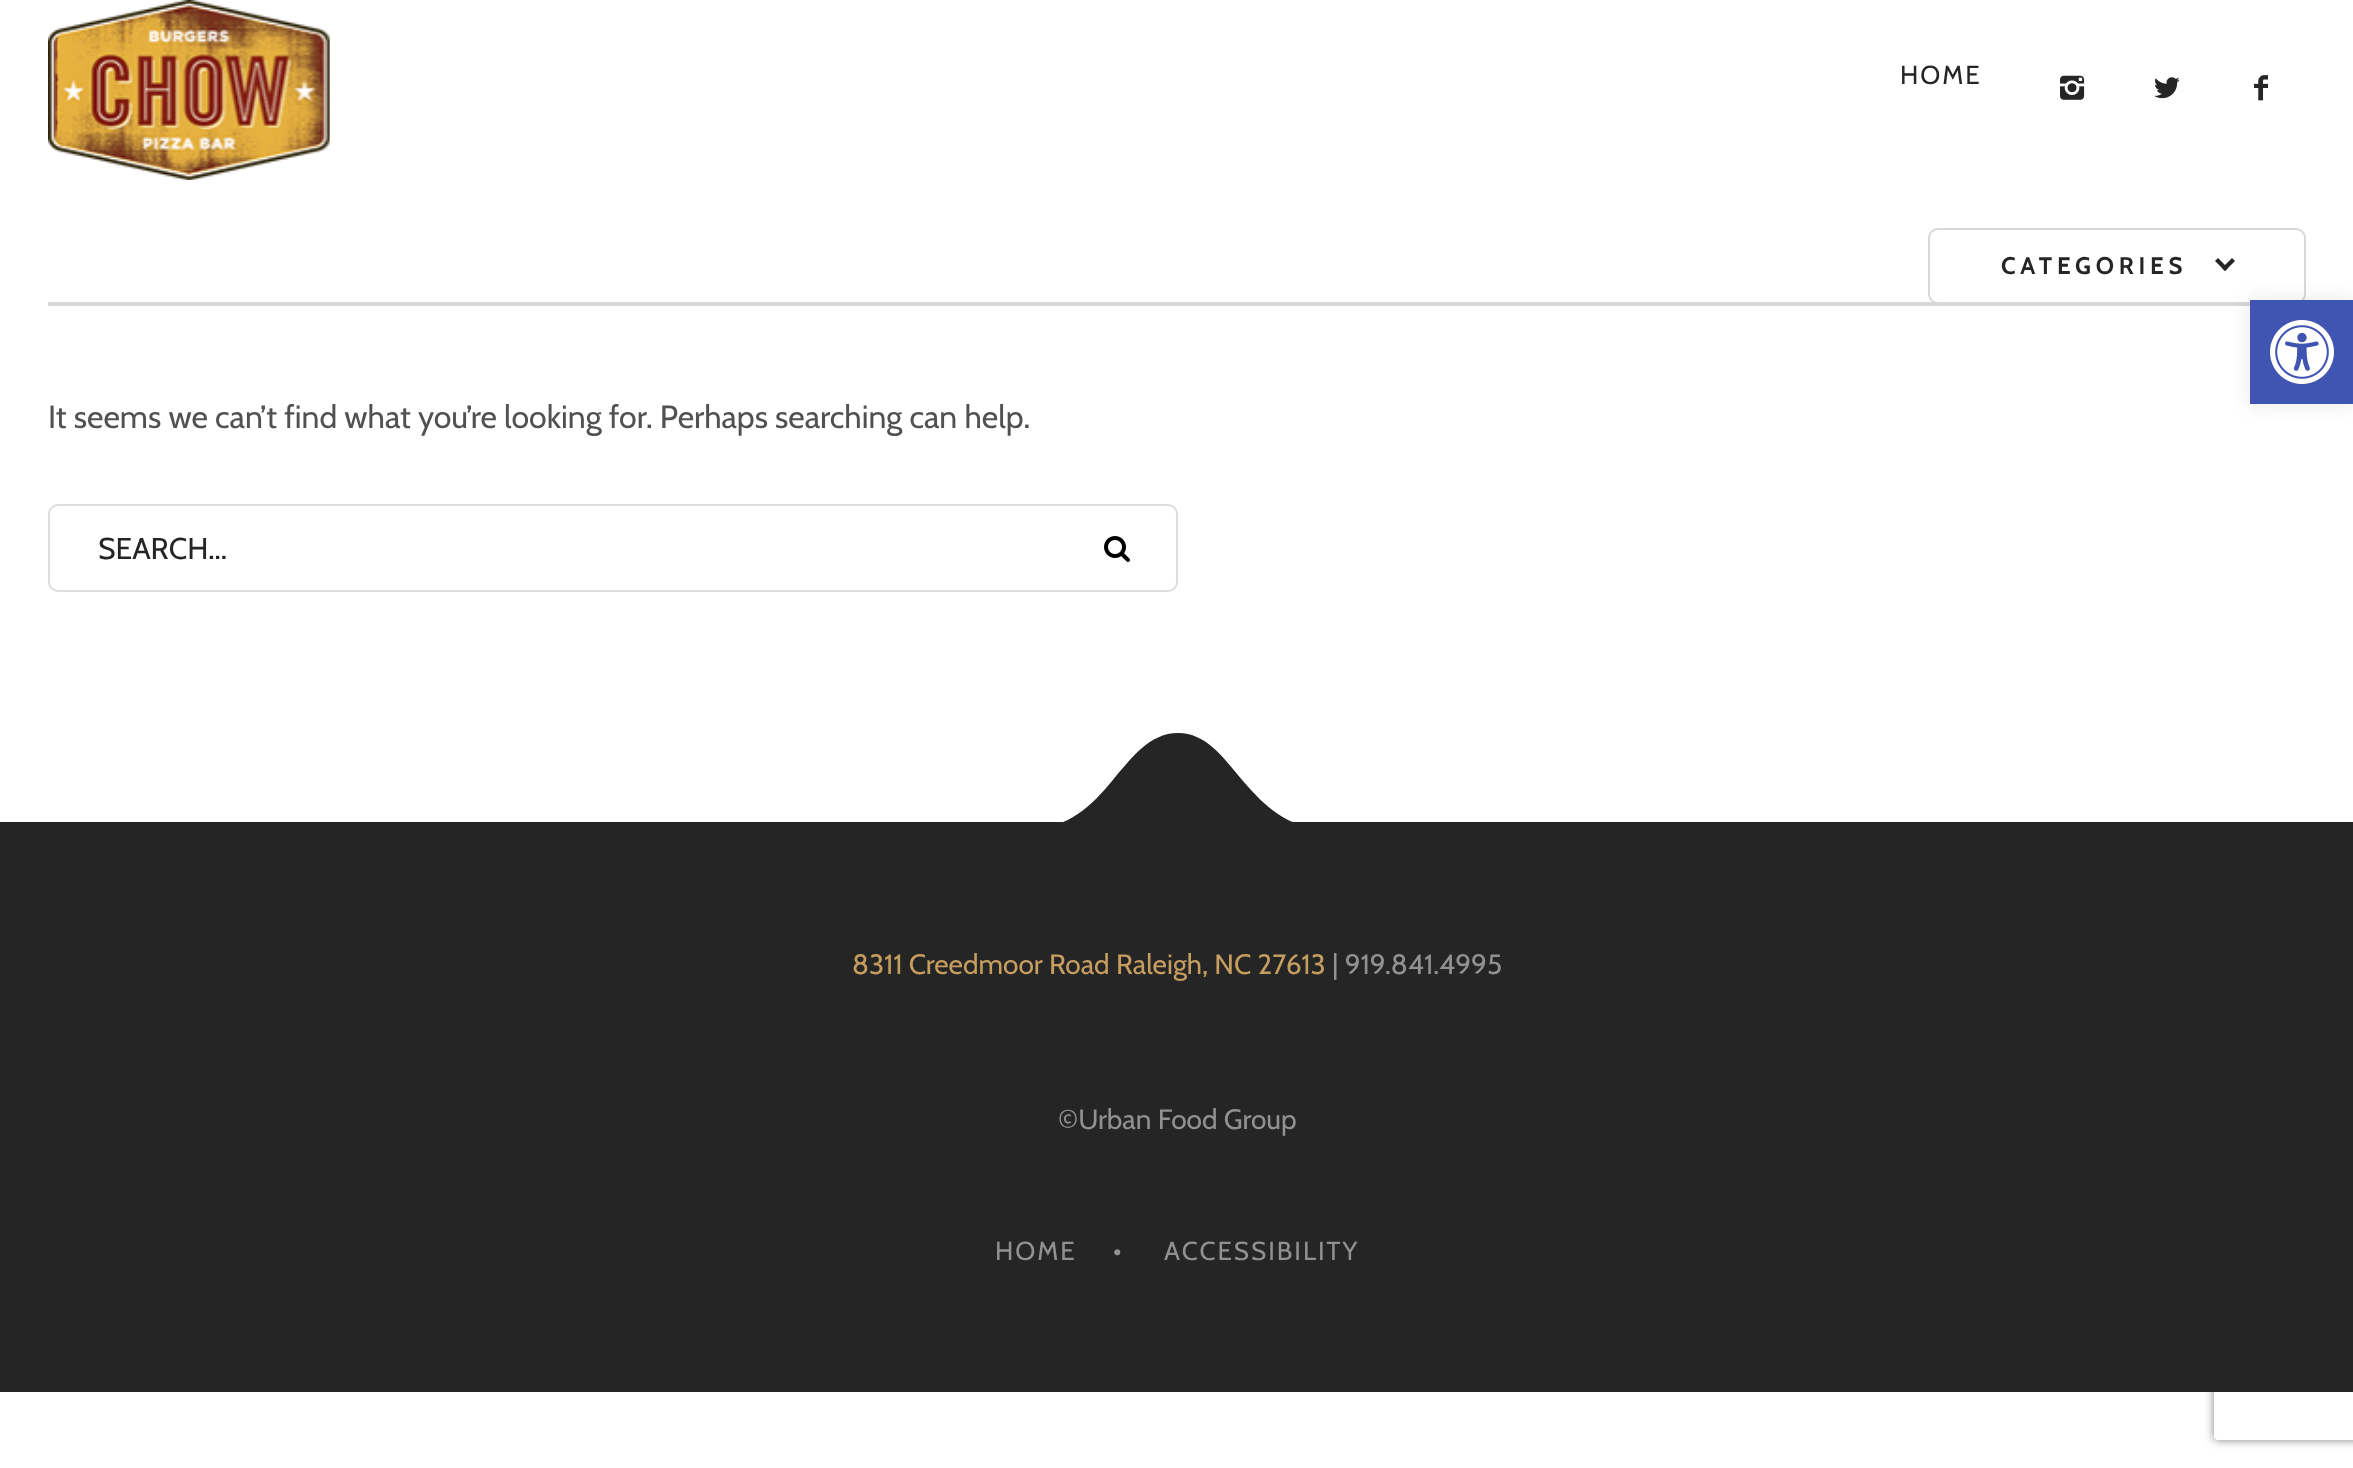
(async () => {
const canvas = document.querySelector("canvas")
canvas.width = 2353
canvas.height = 1468
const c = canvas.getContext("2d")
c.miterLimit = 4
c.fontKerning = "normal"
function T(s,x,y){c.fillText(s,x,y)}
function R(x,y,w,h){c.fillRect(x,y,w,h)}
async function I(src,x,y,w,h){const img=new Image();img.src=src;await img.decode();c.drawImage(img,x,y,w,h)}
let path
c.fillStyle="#fff"
R(0,0,2353,1468)
await I("1.png",48,0,282,180)
c.letterSpacing="2px"
c.font="26px Cabin"
c.fillStyle="#262526"
T("HOME",1900,84)
await I("2.png",2060,75,25,25)
await I("3.png",2154,77,26,22)
await I("4.png",2254,75,14,26)
c.fillStyle="#d8d8d8"
R(48,302,2202,4)
c.beginPath()
c.roundRect(1929,229,376,74,9)
c.strokeStyle="#d8d8d8"
c.lineWidth=2
c.stroke()
c.letterSpacing="4.75px"
c.font="bold 24px Cabin"
c.fillStyle="#262526"
T("CATEGORIES",2001,274)
path = new Path2D("M2232 258l3 3l-10 10l-3-3z")
c.fill(path)
path = new Path2D("M2218 258l10 10l-3 3l-10-10z")
c.fill(path)
c.letterSpacing="0px"
c.font="32px Cabin"
c.fillStyle="#515150"
T("It seems we can’t find what you’re looking for. Perhaps searching can help.",48,428)
c.beginPath()
c.roundRect(49,505,1128,86,9)
c.strokeStyle="#ddd"
c.stroke()
c.font="30px Cabin"
c.fillStyle="#262526"
T("SEARCH...",98,559)
await I("5.png",1104,536,26,26)
c.save()
path = new Path2D("M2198 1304h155v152h-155zm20 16h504c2 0 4 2 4 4v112c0 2-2 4-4 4h-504c-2 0-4-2-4-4v-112c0-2 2-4 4-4z")
c.clip(path,"evenodd")
c.fillStyle="#808080"
c.filter="blur(5px)"
c.beginPath()
c.roundRect(2214,1320,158,120,4)
c.fill()
c.filter="none"
c.restore()
R(0,822,2353,570)
c.save()
c.beginPath()
c.rect(994,732,366,116)
c.clip()
path = new Path2D("M1178 849l81-10c40-5 77-10 69-10c-41 0-64-24-85-48c-20-24-37-48-65-48c-28 0-46 24-66 48c-20 24-43 48-84 48c-8 0-12 0 6 2z")
c.fill(path)
c.restore()
c.font="28px Cabin"
c.fillStyle="#c59d5f"
T("8311 Creedmoor Road Raleigh, NC 27613",852,974)
c.fillStyle="#919191"
T("| 919.841.4995",1332,974)
T("©Urban Food Group",1058,1129)
c.letterSpacing="2px"
c.font="26px Cabin"
T("HOME",995,1260)
c.letterSpacing="0px"
c.font="28px Cabin"
T("•",1113,1260)
c.letterSpacing="2px"
c.font="26px Cabin"
T("ACCESSIBILITY",1164,1260)
c.fillStyle="#0000001a"
c.filter="blur(10px)"
c.beginPath()
c.rect(2250,300,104,104)
c.fill()
c.filter="none"
c.fillStyle="#4054b2"
R(2250,300,103,104)
await I("6.png",2270,320,64,64)
})()
